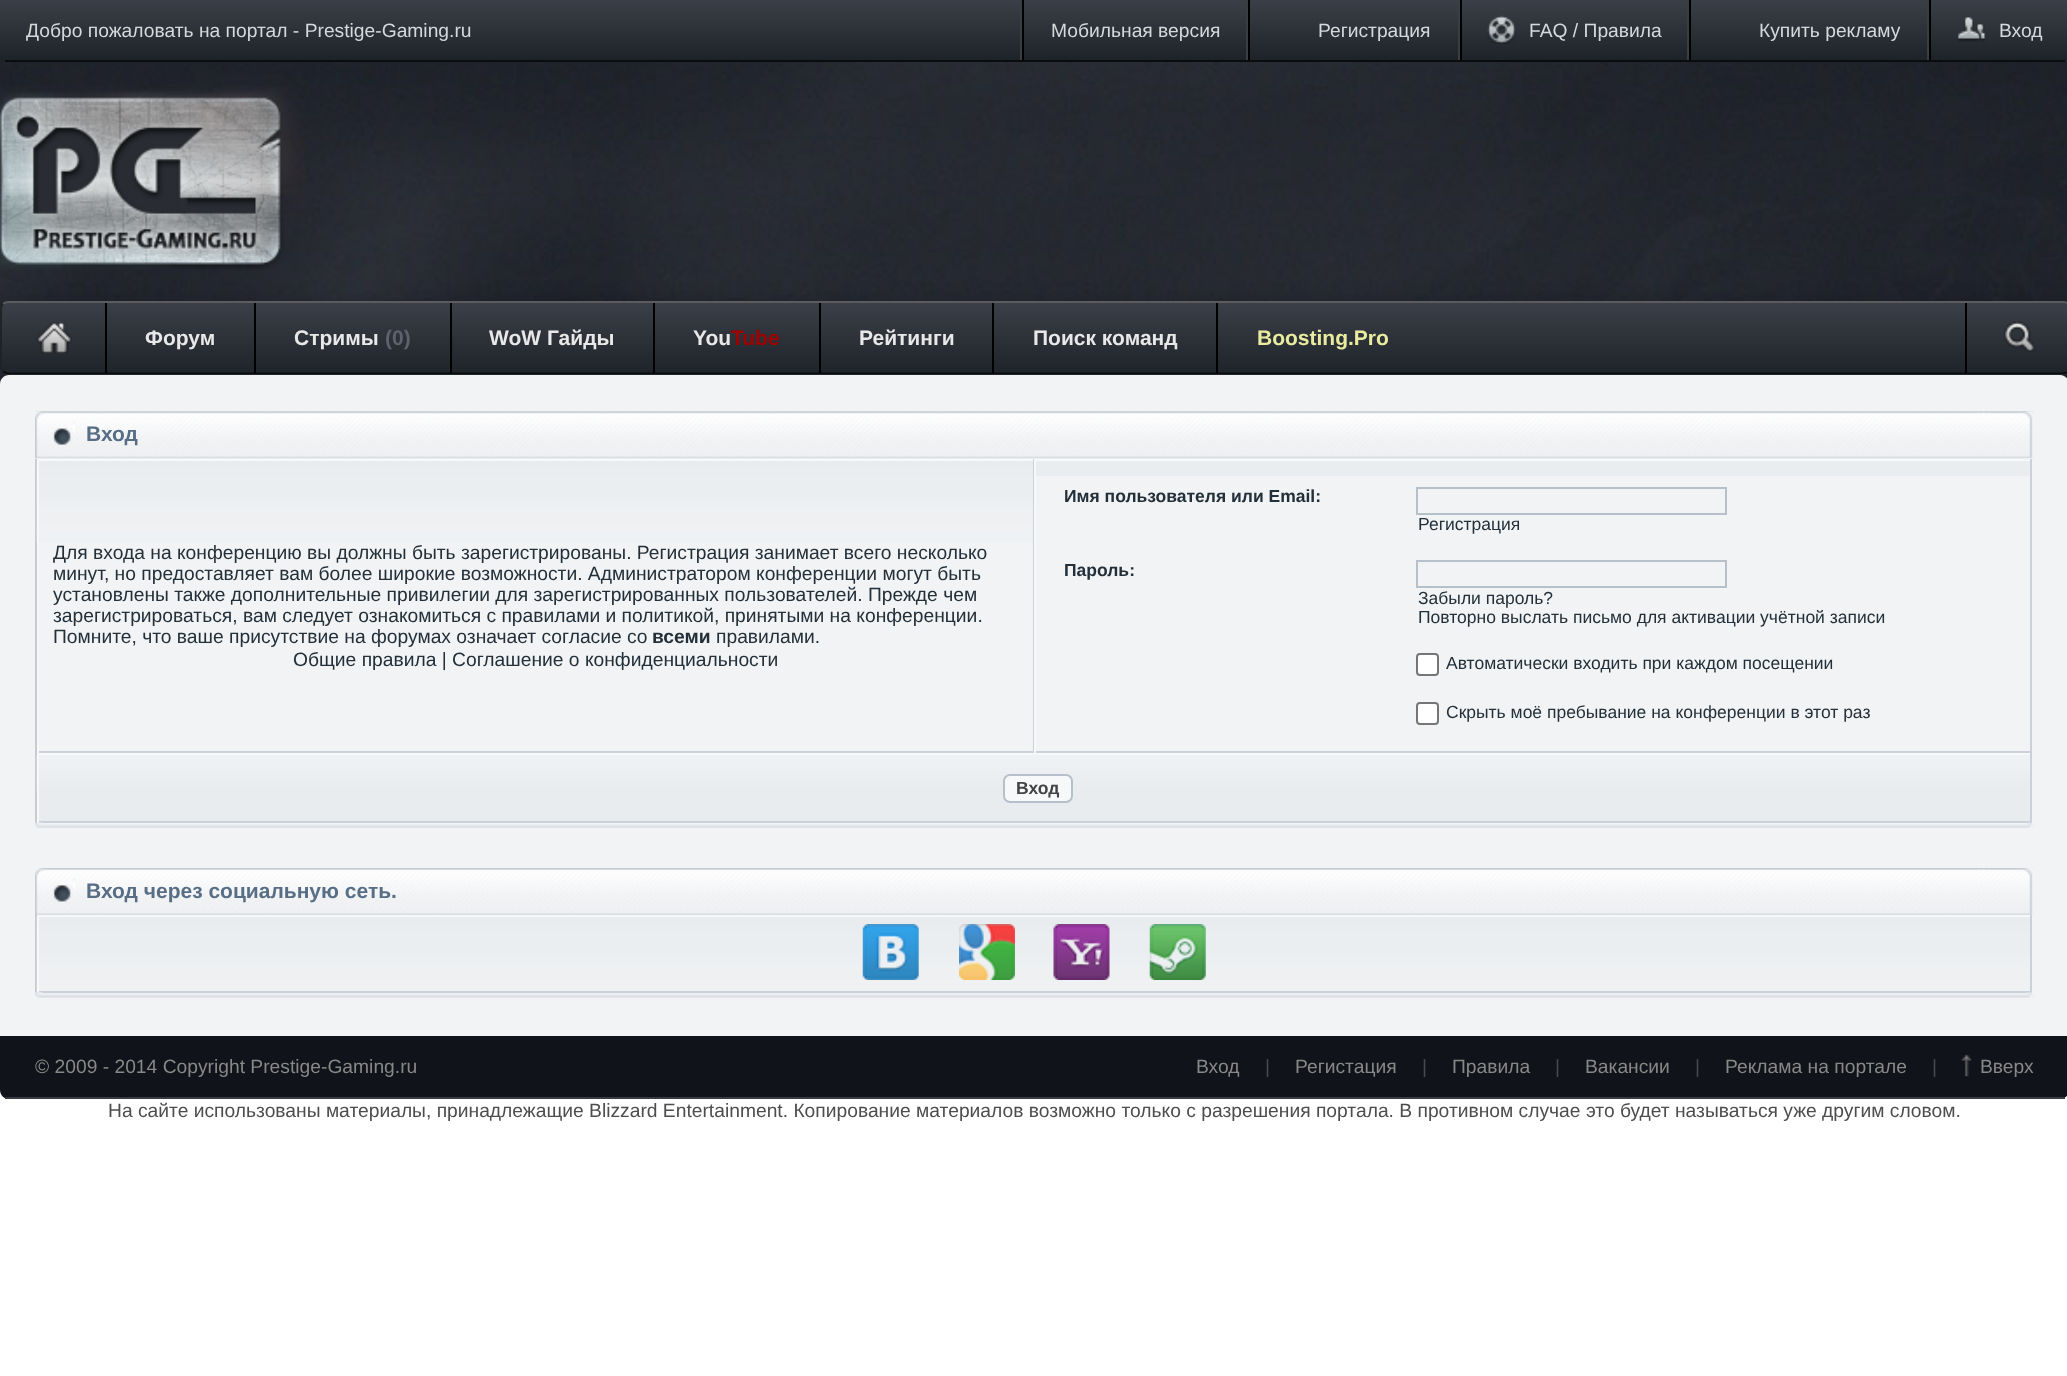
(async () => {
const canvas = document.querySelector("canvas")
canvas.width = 2067
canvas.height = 1376
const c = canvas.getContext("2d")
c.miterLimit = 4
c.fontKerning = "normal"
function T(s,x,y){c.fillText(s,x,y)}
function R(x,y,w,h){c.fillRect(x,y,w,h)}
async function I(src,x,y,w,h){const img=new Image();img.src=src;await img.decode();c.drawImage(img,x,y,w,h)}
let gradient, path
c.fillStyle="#fff"
R(0,0,2067,1376)
await I("25.png",0,52,2067,332)
c.save()
path = new Path2D("M0 0h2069v52c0 5-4 9-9 9h-2051c-5 0-9-4-9-9z")
c.clip(path)
gradient = c.createLinearGradient(1034,0,1034,60)
gradient.addColorStop(0,"#3b3f47")
gradient.addColorStop(1,"#1e2229")
c.fillStyle = gradient
R(0,0,2067,60)
c.restore()
c.fillStyle="#0a0c0e"
R(5,60,2060,2)
c.font="19.25px Liberation Sans"
c.fillStyle="#d3dadc"
T("Добро пожаловать на портал - Prestige-Gaming.ru",26,37)
c.fillStyle="#393d44"
R(1020,0,2,60)
c.fillStyle="#000"
R(1022,0,2,60)
c.fillStyle="#d3dadc"
T("Мобильная версия",1051,37)
c.fillStyle="#393d44"
R(1246,0,2,60)
c.fillStyle="#000"
R(1248,0,2,60)
c.fillStyle="#d3dadc"
T("Регистрация",1318,37)
c.fillStyle="#393d44"
R(1458,0,2,60)
c.fillStyle="#000"
R(1460,0,2,60)
await I("1.png",1487,15,29,29)
c.fillStyle="#d3dadc"
T("FAQ / Правила",1529,37)
c.fillStyle="#393d44"
R(1687,0,2,60)
c.fillStyle="#000"
R(1689,0,2,60)
c.fillStyle="#d3dadc"
T("Купить рекламу",1759,37)
c.fillStyle="#393d44"
R(1927,0,2,60)
c.fillStyle="#000"
R(1929,0,2,60)
await I("2.png",1957,17,28,25)
c.fillStyle="#d3dadc"
T("Вход",1999,37)
await I("3.png",0,86,305,184)
c.fillStyle="#00000033"
c.filter="blur(9px)"
c.beginPath()
c.roundRect(0,301,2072,74,9)
c.fill()
c.filter="none"
c.save()
c.beginPath()
c.roundRect(0,301,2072,74,9)
c.clip()
gradient = c.createLinearGradient(1036,303,1036,373)
gradient.addColorStop(0,"#3b3f47")
gradient.addColorStop(1,"#1f232a")
c.fillStyle = gradient
R(0,303,2067,70)
gradient = c.createLinearGradient(1036,373,1036,443)
gradient.addColorStop(0,"#3b3f47")
gradient.addColorStop(1,"#1f232a")
c.fillStyle = gradient
R(0,373,2067,2)
c.restore()
path = new Path2D("M3 304c1.5-1.5 3.5-2 5.5-2h2054.5c2.5 0 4.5 .5 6 2")
c.strokeStyle="#5c5c5e"
c.lineWidth=1.8
c.stroke(path)
path = new Path2D("M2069 371.5c-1.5 1.5-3.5 2-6 2h-2054c-2.5 0-4.5-.5-6-2")
c.strokeStyle="#0a0c0e"
c.stroke(path)
path = new Path2D("M3 371.5c-1.5-1.5-2-3.5-2-5.5v-56c0-2.5 .5-4.5 2-6")
c.strokeStyle="#212228"
c.stroke(path)
await I("4.png",37,322,35,32)
c.fillStyle="#000"
R(105,303,2,70)
c.font="bold 21px Liberation Sans"
c.fillStyle="#e8e8e8"
T("Форум",145,345)
c.fillStyle="#000"
R(254,303,2,70)
c.fillStyle="#e8e8e8"
T("Стримы",294,345)
c.fillStyle="#5d626c"
T("(0)",385,345)
c.fillStyle="#000"
R(450,303,2,70)
c.fillStyle="#e8e8e8"
T("WoW Гайды",489,345)
c.fillStyle="#000"
R(653,303,2,70)
c.fillStyle="#e8e8e8"
T("You",693,345)
c.fillStyle="#a00000"
T("Tube",731,345)
c.fillStyle="#000"
R(819,303,2,70)
c.fillStyle="#e8e8e8"
T("Рейтинги",859,345)
c.fillStyle="#000"
R(992,303,2,70)
c.fillStyle="#e8e8e8"
T("Поиск команд",1033,345)
c.fillStyle="#000"
R(1216,303,2,70)
c.fillStyle="#e9ec9f"
T("Boosting.Pro",1257,345)
c.fillStyle="#000"
R(1965,303,2,70)
await I("5.png",2004,321,31,31)
c.fillStyle="#f1f3f5"
path = new Path2D("M9 375h2051c5 0 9 4 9 9v652h-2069v-652c0-5 4-9 9-9z")
c.fill(path)
await I("6.png",42,824,1992,4)
await I("7.png",35,411,1999,47)
await I("8.png",35,411,40,47)
await I("9.png",1983,411,51,47)
c.fillStyle="#586e85"
T("Вход",86,441)
c.fillStyle="#ebeef0"
R(35,458,1999,1)
c.fillStyle="#c3cbd3"
R(35,459,2,364)
await I("10.png",36,460,997,83)
c.fillStyle="#f6f8f9"
R(37,459,1995,2)
c.fillStyle="#cad1d8"
R(1033,459,1,294)
R(37,751,997,2)
c.fillStyle="#f6f8f9"
R(37,459,2,294)
c.font="19.25px Liberation Sans"
c.fillStyle="#233039"
T("Для входа на конференцию вы должны быть зарегистрированы. Регистрация занимает всего несколько",53,559)
T("минут, но предоставляет вам более широкие возможности. Администратором конференции могут быть",53,580)
T("установлены также дополнительные привилегии для зарегистрированных пользователей. Прежде чем",53,601)
T("зарегистрироваться, вам следует ознакомиться с правилами и политикой, принятыми на конференции.",53,622)
T("Помните, что ваше присутствие на форумах означает согласие со",53,643)
c.font="bold 19.25px Liberation Sans"
T("всеми",652,643)
c.font="19.25px Liberation Sans"
T("правилами.",716,643)
T("Общие правила | Соглашение о конфиденциальности",293,666)
c.fillStyle="#eaedef"
R(1036,461,994,15)
c.fillStyle="#cad1d8"
R(2030,459,2,294)
R(1034,751,998,2)
c.fillStyle="#f6f8f9"
R(1034,459,2,294)
c.font="bold 17.5px Liberation Sans"
c.fillStyle="#233039"
T("Имя пользователя или Email:",1064,502)
c.strokeStyle="#b6c0ca"
c.lineWidth=2
c.strokeRect(1417,488,309,26)
c.font="17.5px Liberation Sans"
T("Регистрация",1418,530)
c.font="bold 17.5px Liberation Sans"
T("Пароль:",1064,576)
c.strokeRect(1417,561,309,26)
c.font="17.5px Liberation Sans"
T("Забыли пароль?",1418,604)
T("Повторно выслать письмо для активации учётной записи",1418,623)
c.fillStyle="#fff"
c.beginPath()
c.roundRect(1417,654,21,21,3)
c.fill()
c.strokeStyle="#767676"
c.stroke()
c.fillStyle="#233039"
T("Автоматически входить при каждом посещении",1446,669)
c.fillStyle="#fff"
c.beginPath()
c.roundRect(1417,703,21,21,3)
c.fill()
c.stroke()
c.fillStyle="#233039"
T("Скрыть моё пребывание на конференции в этот раз",1446,718)
c.fillStyle="#e9ecee"
R(39,791,1991,30)
await I("11.png",36,754,1994,37)
c.fillStyle="#f6f8f9"
R(37,753,1995,2)
c.fillStyle="#cad1d8"
R(2030,753,2,70)
R(37,821,1995,2)
c.fillStyle="#f6f8f9"
R(37,753,2,70)
c.fillStyle="#f7f8f9"
c.beginPath()
c.roundRect(1004,775,68,27,6)
c.fill()
c.strokeStyle="#b6c0ca"
c.stroke()
c.font="bold 17.5px Liberation Sans"
c.fillStyle="#444"
T("Вход",1016,794)
await I("12.png",35,822,7,6)
await I("13.png",2026,822,7,6)
await I("14.png",42,993,1992,5)
await I("15.png",36,868,1998,47)
await I("16.png",35,868,41,47)
await I("17.png",1983,868,51,47)
c.font="bold 21px Liberation Sans"
c.fillStyle="#586e85"
T("Вход через социальную сеть.",86,898)
c.fillStyle="#c3cbd3"
R(35,915,2,77)
await I("18.png",36,917,1994,75)
c.fillStyle="#f6f8f9"
R(37,915,1995,2)
c.fillStyle="#cad1d8"
R(2030,915,2,77)
R(37,991,1995,2)
c.fillStyle="#f6f8f9"
R(37,915,2,77)
await I("19.png",862,924,57,56)
await I("20.png",959,924,56,56)
await I("21.png",1053,924,57,56)
await I("22.png",1149,924,57,56)
await I("23.png",35,992,7,6)
await I("24.png",2026,992,7,6)
c.fillStyle="#101319"
path = new Path2D("M0 1036h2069v54c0 5-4 9-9 9h-2051c-5 0-9-4-9-9z")
c.fill(path)
c.fillStyle="#383b40"
R(5,1097,2060,2)
c.font="19.25px Liberation Sans"
c.fillStyle="#888"
T("© 2009 - 2014 Copyright Prestige-Gaming.ru",35,1073)
T("Вход",1196,1073)
c.fillStyle="#474a51"
T("|",1265,1073)
c.fillStyle="#888"
T("Регистация",1295,1073)
c.fillStyle="#474a51"
T("|",1422,1073)
c.fillStyle="#888"
T("Правила",1452,1073)
c.fillStyle="#474a51"
T("|",1555,1073)
c.fillStyle="#888"
T("Вакансии",1585,1073)
c.fillStyle="#474a51"
T("|",1695,1073)
c.fillStyle="#888"
T("Реклама на портале",1725,1073)
c.fillStyle="#474a51"
T("|",1932,1073)
await I("26.png",1961,1055,11,22)
c.fillStyle="#888"
T("Вверх",1980,1073)
c.fillStyle="#4d4d4d"
T("На сайте использованы материалы, принадлежащие Blizzard Entertainment. Копирование материалов возможно только c разрешения портала. В противном случае это будет называться уже другим словом.",108,1117)
})()
